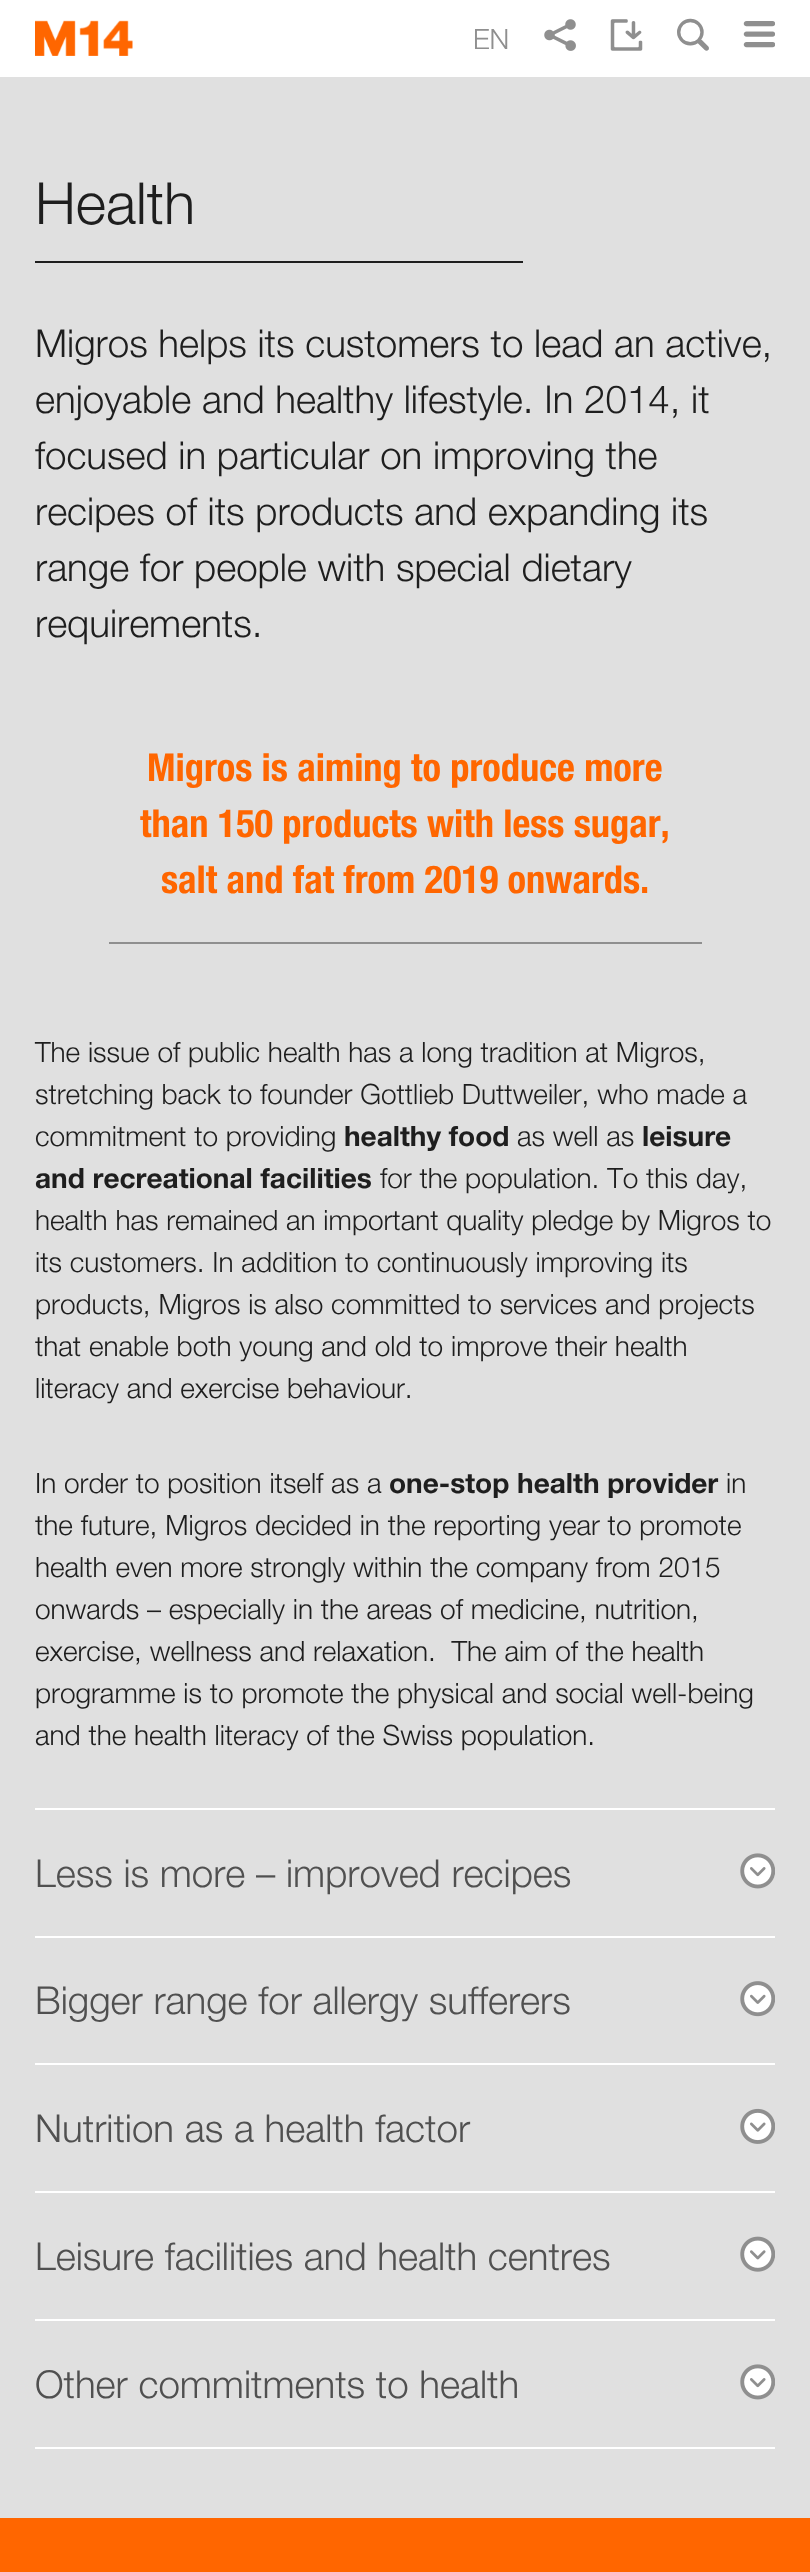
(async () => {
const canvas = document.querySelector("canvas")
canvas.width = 810
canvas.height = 2572
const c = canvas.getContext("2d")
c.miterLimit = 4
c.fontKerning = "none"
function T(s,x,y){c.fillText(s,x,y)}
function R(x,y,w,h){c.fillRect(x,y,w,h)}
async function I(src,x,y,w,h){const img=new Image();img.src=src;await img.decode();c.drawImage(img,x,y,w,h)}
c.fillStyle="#e0e0e0"
R(0,0,810,2572)
c.fillStyle="#fff"
R(0,0,810,77)
await I("1.png",35,20,98,36)
c.font="300 28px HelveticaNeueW"
c.fillStyle="#8f8f8f"
T("EN",473,49)
await I("2.png",544,19,32,32)
await I("3.png",610,19,33,32)
c.font="32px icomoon"
T("🔍",677,49)
await I("4.png",743,21,32,27)
c.font="300 58px HelveticaNeueW"
c.fillStyle="#1e1e1e"
T("Health",35,224)
R(35,261,488,2)
c.font="300 38.5px HelveticaNeueW"
T("Migros helps its customers to lead an active,",35,357)
T("enjoyable and healthy lifestyle. In 2014, it",35,413)
T("focused in particular on improving the",35,469)
T("recipes of its products and expanding its",35,525)
T("range for people with special dietary",35,581)
T("requirements.",35,637)
c.font="38.5px HelveticaNeueW"
c.fillStyle="#f60"
T("Migros is aiming to produce more",147,781)
T("than 150 products with less sugar,",140,837)
T("salt and fat from 2019 onwards.",161,893)
c.fillStyle="#8f8f8f"
R(109,942,593,2)
c.font="300 28px HelveticaNeueW"
c.fillStyle="#1e1e1e"
T("The issue of public health has a long tradition at Migros,",35,1062)
T("stretching back to founder Gottlieb Duttweiler, who made a",35,1104)
T("commitment to providing",35,1146)
c.font="bold 28px HelveticaNeueW"
T("healthy food",344,1146)
c.font="300 28px HelveticaNeueW"
T("as well as",517,1146)
c.font="bold 28px HelveticaNeueW"
T("leisure",642,1146)
T("and recreational facilities",35,1188)
c.font="300 28px HelveticaNeueW"
T("for the population. To this day,",380,1188)
T("health has remained an important quality pledge by Migros to",35,1230)
T("its customers. In addition to continuously improving its",35,1272)
T("products, Migros is also committed to services and projects",35,1314)
T("that enable both young and old to improve their health",35,1356)
T("literacy and exercise behaviour.",35,1398)
T("In order to position itself as a",35,1493)
c.font="bold 28px HelveticaNeueW"
T("one-stop health provider",389,1493)
c.font="300 28px HelveticaNeueW"
T("in",726,1493)
T("the future, Migros decided in the reporting year to promote",35,1535)
T("health even more strongly within the company from 2015",35,1577)
T("onwards – especially in the areas of medicine, nutrition,",35,1619)
T("exercise, wellness and relaxation.  The aim of the health",35,1661)
T("programme is to promote the physical and social well-being",35,1703)
T("and the health literacy of the Swiss population.",35,1745)
c.fillStyle="#fff"
R(35,1808,740,2)
R(35,1936,740,2)
c.font="300 38.5px HelveticaNeueW"
c.fillStyle="#505050"
T("Less is more – improved recipes",35,1887)
c.save()
c.beginPath()
c.rect(35,1827,740,91)
c.clip()
c.fillStyle="#fff"
c.beginPath()
c.ellipse(758,1871,17.5,16,0,0,7)
c.fill()
c.restore()
await I("5.png",740,1853,35,36)
c.fillStyle="#fff"
R(35,2063,740,2)
c.fillStyle="#505050"
T("Bigger range for allergy sufferers",35,2014)
c.save()
c.beginPath()
c.rect(35,1955,740,91)
c.clip()
c.fillStyle="#fff"
c.beginPath()
c.ellipse(758,1998.5,17.5,16,0,0,7)
c.fill()
c.restore()
await I("6.png",740,1981,35,36)
c.fillStyle="#fff"
R(35,2191,740,2)
c.fillStyle="#505050"
T("Nutrition as a health factor",35,2142)
c.save()
c.beginPath()
c.rect(35,2083,740,91)
c.clip()
c.fillStyle="#fff"
c.beginPath()
c.ellipse(758,2126,17.5,16,0,0,7)
c.fill()
c.restore()
await I("7.png",740,2108,35,36)
c.fillStyle="#fff"
R(35,2319,740,2)
c.fillStyle="#505050"
T("Leisure facilities and health centres",35,2270)
c.save()
c.beginPath()
c.rect(35,2210,740,91)
c.clip()
c.fillStyle="#fff"
c.beginPath()
c.ellipse(758,2254,17.5,16,0,0,7)
c.fill()
c.restore()
await I("8.png",740,2236,35,36)
c.fillStyle="#fff"
R(35,2447,740,2)
c.fillStyle="#505050"
T("Other commitments to health",35,2398)
c.save()
c.beginPath()
c.rect(35,2338,740,91)
c.clip()
c.fillStyle="#fff"
c.beginPath()
c.ellipse(758,2382,17.5,16,0,0,7)
c.fill()
c.restore()
await I("5.png",740,2364,35,36)
c.fillStyle="#f60"
R(0,2518,810,54)
})()
